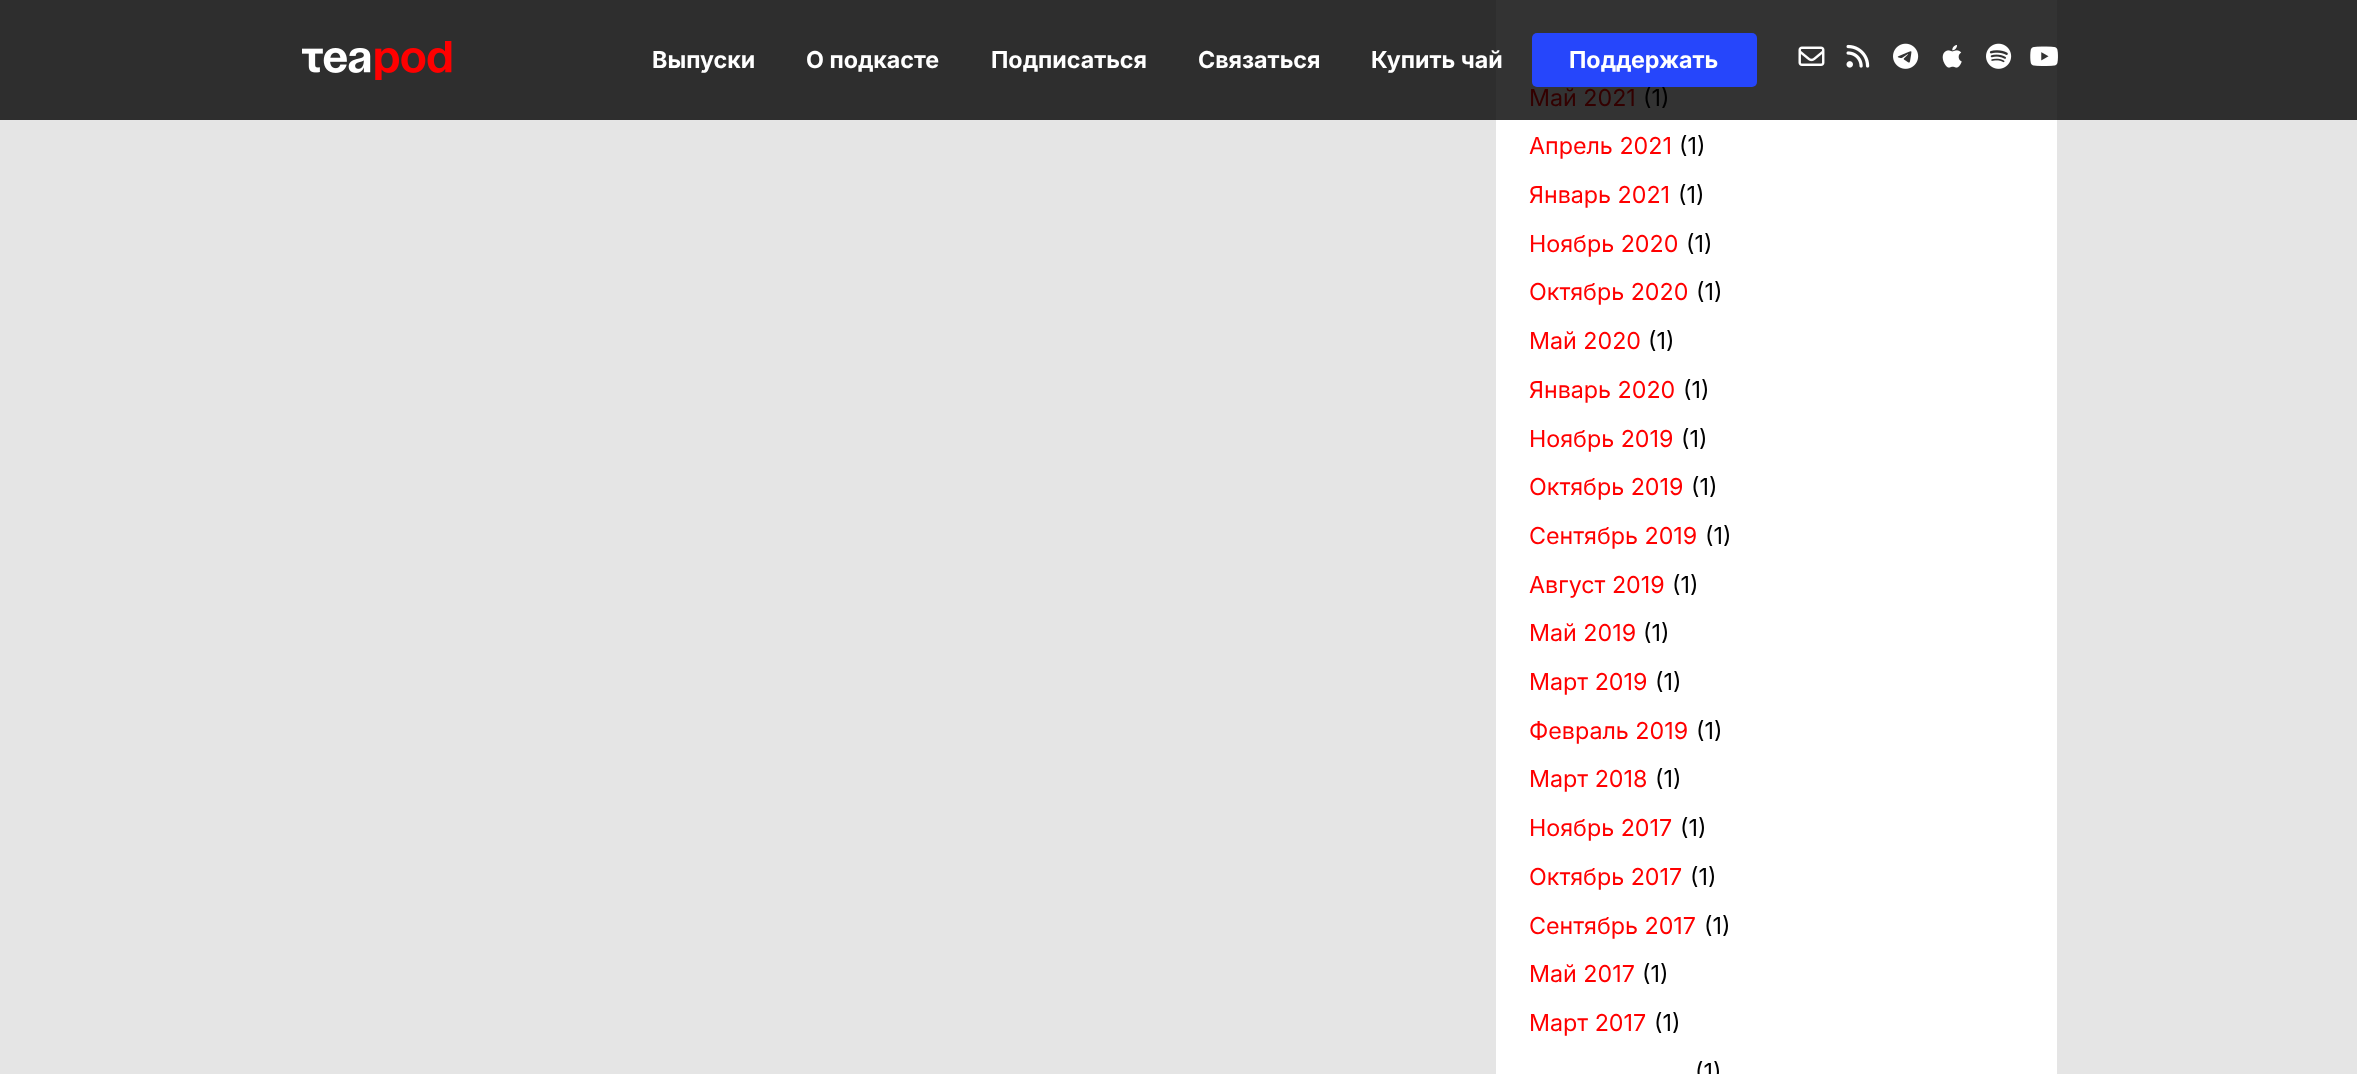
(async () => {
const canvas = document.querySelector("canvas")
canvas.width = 2357
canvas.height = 1074
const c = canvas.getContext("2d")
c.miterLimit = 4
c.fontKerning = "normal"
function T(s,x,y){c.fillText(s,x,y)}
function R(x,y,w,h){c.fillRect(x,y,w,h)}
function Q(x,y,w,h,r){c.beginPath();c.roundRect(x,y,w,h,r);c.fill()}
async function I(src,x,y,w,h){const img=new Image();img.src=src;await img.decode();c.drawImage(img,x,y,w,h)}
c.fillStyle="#e5e5e5"
R(0,0,2357,1074)
c.fillStyle="#2e2e2e"
R(0,0,2357,120)
await I("1.png",302,41,150,39)
c.font="bold 23.25px Inter"
c.fillStyle="#fff"
T("Выпуски",652,68)
T("О подкасте",806,68)
T("Подписаться",991,68)
T("Связаться",1198,68)
c.fillStyle="#333"
R(1496,0,561,120)
c.fillStyle="#fff"
T("Купить чай",1371,68)
c.font="23.25px Inter"
c.fillStyle="#000"
T("(1)",1643,106)
c.fillStyle="#2646fb"
Q(1532,33,225,54,5)
c.font="bold 23.25px Inter"
c.fillStyle="#fff"
T("Поддержать",1569,68)
await I("2.png",1798,46,27,20)
await I("3.png",1846,44,24,24)
await I("4.png",1893,43,26,26)
await I("5.png",1942,45,20,23)
await I("6.png",1986,43,26,26)
await I("7.png",2030,46,28,20)
R(1496,120,561,954)
c.font="23.25px Inter"
c.fillStyle="#300"
T("Май 2021",1529,106)
c.fillStyle="#f00"
T("Апрель 2021",1529,154)
c.fillStyle="#000"
T("(1)",1679,154)
c.fillStyle="#f00"
T("Январь 2021",1529,203)
c.fillStyle="#000"
T("(1)",1678,203)
c.fillStyle="#f00"
T("Ноябрь 2020",1529,252)
c.fillStyle="#000"
T("(1)",1686,252)
c.fillStyle="#f00"
T("Октябрь 2020",1529,300)
c.fillStyle="#000"
T("(1)",1696,300)
c.fillStyle="#f00"
T("Май 2020",1529,349)
c.fillStyle="#000"
T("(1)",1648,349)
c.fillStyle="#f00"
T("Январь 2020",1529,398)
c.fillStyle="#000"
T("(1)",1683,398)
c.fillStyle="#f00"
T("Ноябрь 2019",1529,447)
c.fillStyle="#000"
T("(1)",1681,447)
c.fillStyle="#f00"
T("Октябрь 2019",1529,495)
c.fillStyle="#000"
T("(1)",1691,495)
c.fillStyle="#f00"
T("Сентябрь 2019",1529,544)
c.fillStyle="#000"
T("(1)",1705,544)
c.fillStyle="#f00"
T("Август 2019",1529,593)
c.fillStyle="#000"
T("(1)",1672,593)
c.fillStyle="#f00"
T("Май 2019",1529,641)
c.fillStyle="#000"
T("(1)",1643,641)
c.fillStyle="#f00"
T("Март 2019",1529,690)
c.fillStyle="#000"
T("(1)",1655,690)
c.fillStyle="#f00"
T("Февраль 2019",1529,739)
c.fillStyle="#000"
T("(1)",1696,739)
c.fillStyle="#f00"
T("Март 2018",1529,787)
c.fillStyle="#000"
T("(1)",1655,787)
c.fillStyle="#f00"
T("Ноябрь 2017",1529,836)
c.fillStyle="#000"
T("(1)",1680,836)
c.fillStyle="#f00"
T("Октябрь 2017",1529,885)
c.fillStyle="#000"
T("(1)",1690,885)
c.fillStyle="#f00"
T("Сентябрь 2017",1529,934)
c.fillStyle="#000"
T("(1)",1704,934)
c.fillStyle="#f00"
T("Май 2017",1529,982)
c.fillStyle="#000"
T("(1)",1642,982)
c.fillStyle="#f00"
T("Март 2017",1529,1031)
c.fillStyle="#000"
T("(1)",1654,1031)
T("(1)",1695,1080)
})()
